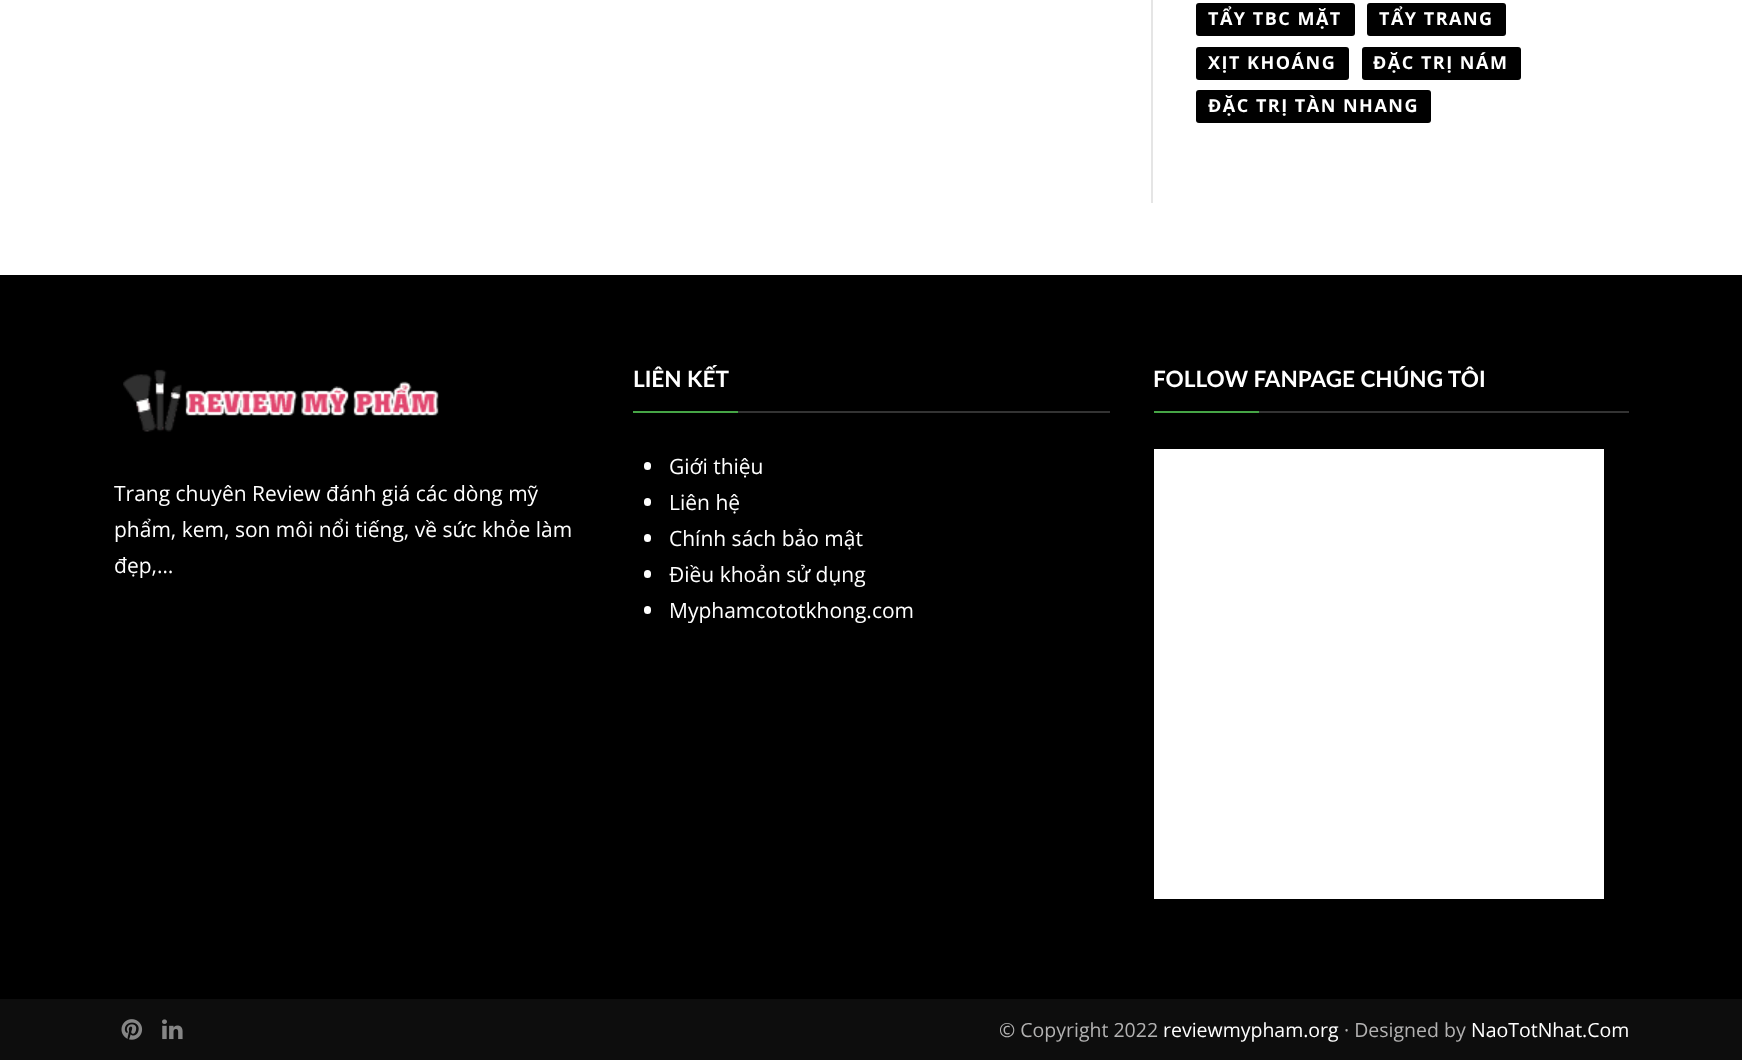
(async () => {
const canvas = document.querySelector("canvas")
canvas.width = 1742
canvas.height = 1060
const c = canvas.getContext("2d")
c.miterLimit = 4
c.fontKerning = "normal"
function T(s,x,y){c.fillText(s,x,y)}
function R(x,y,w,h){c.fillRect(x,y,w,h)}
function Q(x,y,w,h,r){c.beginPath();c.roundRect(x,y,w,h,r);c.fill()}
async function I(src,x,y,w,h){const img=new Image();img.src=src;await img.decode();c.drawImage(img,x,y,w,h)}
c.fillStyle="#fff"
R(0,0,1742,1060)
c.fillStyle="#e5e5e5"
R(1151,0,2,203)
c.fillStyle="#000"
Q(1196,3,159,33,3)
c.letterSpacing="1.5px"
c.font="bold 18px Open Sans"
c.fillStyle="#fff"
T("TẨY TBC MẶT",1208,25)
c.fillStyle="#000"
Q(1367,3,139,33,3)
c.fillStyle="#fff"
T("TẨY TRANG",1379,25)
c.fillStyle="#000"
Q(1196,47,153,33,3)
c.fillStyle="#fff"
T("XỊT KHOÁNG",1208,69)
c.fillStyle="#000"
Q(1362,47,159,33,3)
c.fillStyle="#fff"
T("ĐẶC TRỊ NÁM",1373,69)
c.fillStyle="#000"
Q(1196,90,235,33,3)
c.fillStyle="#fff"
T("ĐẶC TRỊ TÀN NHANG",1208,112)
c.fillStyle="#000"
R(0,275,1742,724)
c.fillStyle="#333"
R(738,411,372,2)
c.letterSpacing="0px"
c.font="bold 22.5px Lato"
c.fillStyle="#fff"
T("LIÊN KẾT",633,387)
c.fillStyle="#46a546"
R(633,411,105,2)
c.fillStyle="#fff"
Q(644,462,7,8,3.5)
c.font="21px Open Sans"
T("Giới thiệu",669,474)
Q(644,498,7,8,3.5)
T("Liên hệ",669,510)
Q(644,534,7,8,3.5)
T("Chính sách bảo mật",669,546)
Q(644,570,7,8,3.5)
T("Điều khoản sử dụng",669,582)
Q(644,606,7,8,3.5)
T("Myphamcototkhong.com",669,618)
c.fillStyle="#333"
R(1259,411,370,2)
c.font="bold 22.5px Lato"
c.fillStyle="#fff"
T("FOLLOW FANPAGE CHÚNG TÔI",1153,387)
c.fillStyle="#46a546"
R(1154,411,105,2)
c.fillStyle="#fff"
R(1154,449,450,450)
await I("1.png",123,369,316,63)
c.font="21px Open Sans"
T("Trang chuyên Review đánh giá các dòng mỹ",114,501)
T("phẩm, kem, son môi nổi tiếng, về sức khỏe làm",114,537)
T("đẹp,…",114,573)
c.fillStyle="#0d0d0d"
R(0,999,1742,61)
await I("2.png",121,1019,22,21)
await I("3.png",162,1019,21,21)
c.font="19.5px Open Sans"
c.fillStyle="#b3b2b2"
T("© Copyright 2022",999,1037)
c.fillStyle="#fff"
T("reviewmypham.org",1163,1037)
c.fillStyle="#b3b2b2"
T("· Designed by",1344,1037)
c.fillStyle="#fff"
T("NaoTotNhat.Com",1471,1037)
})()
